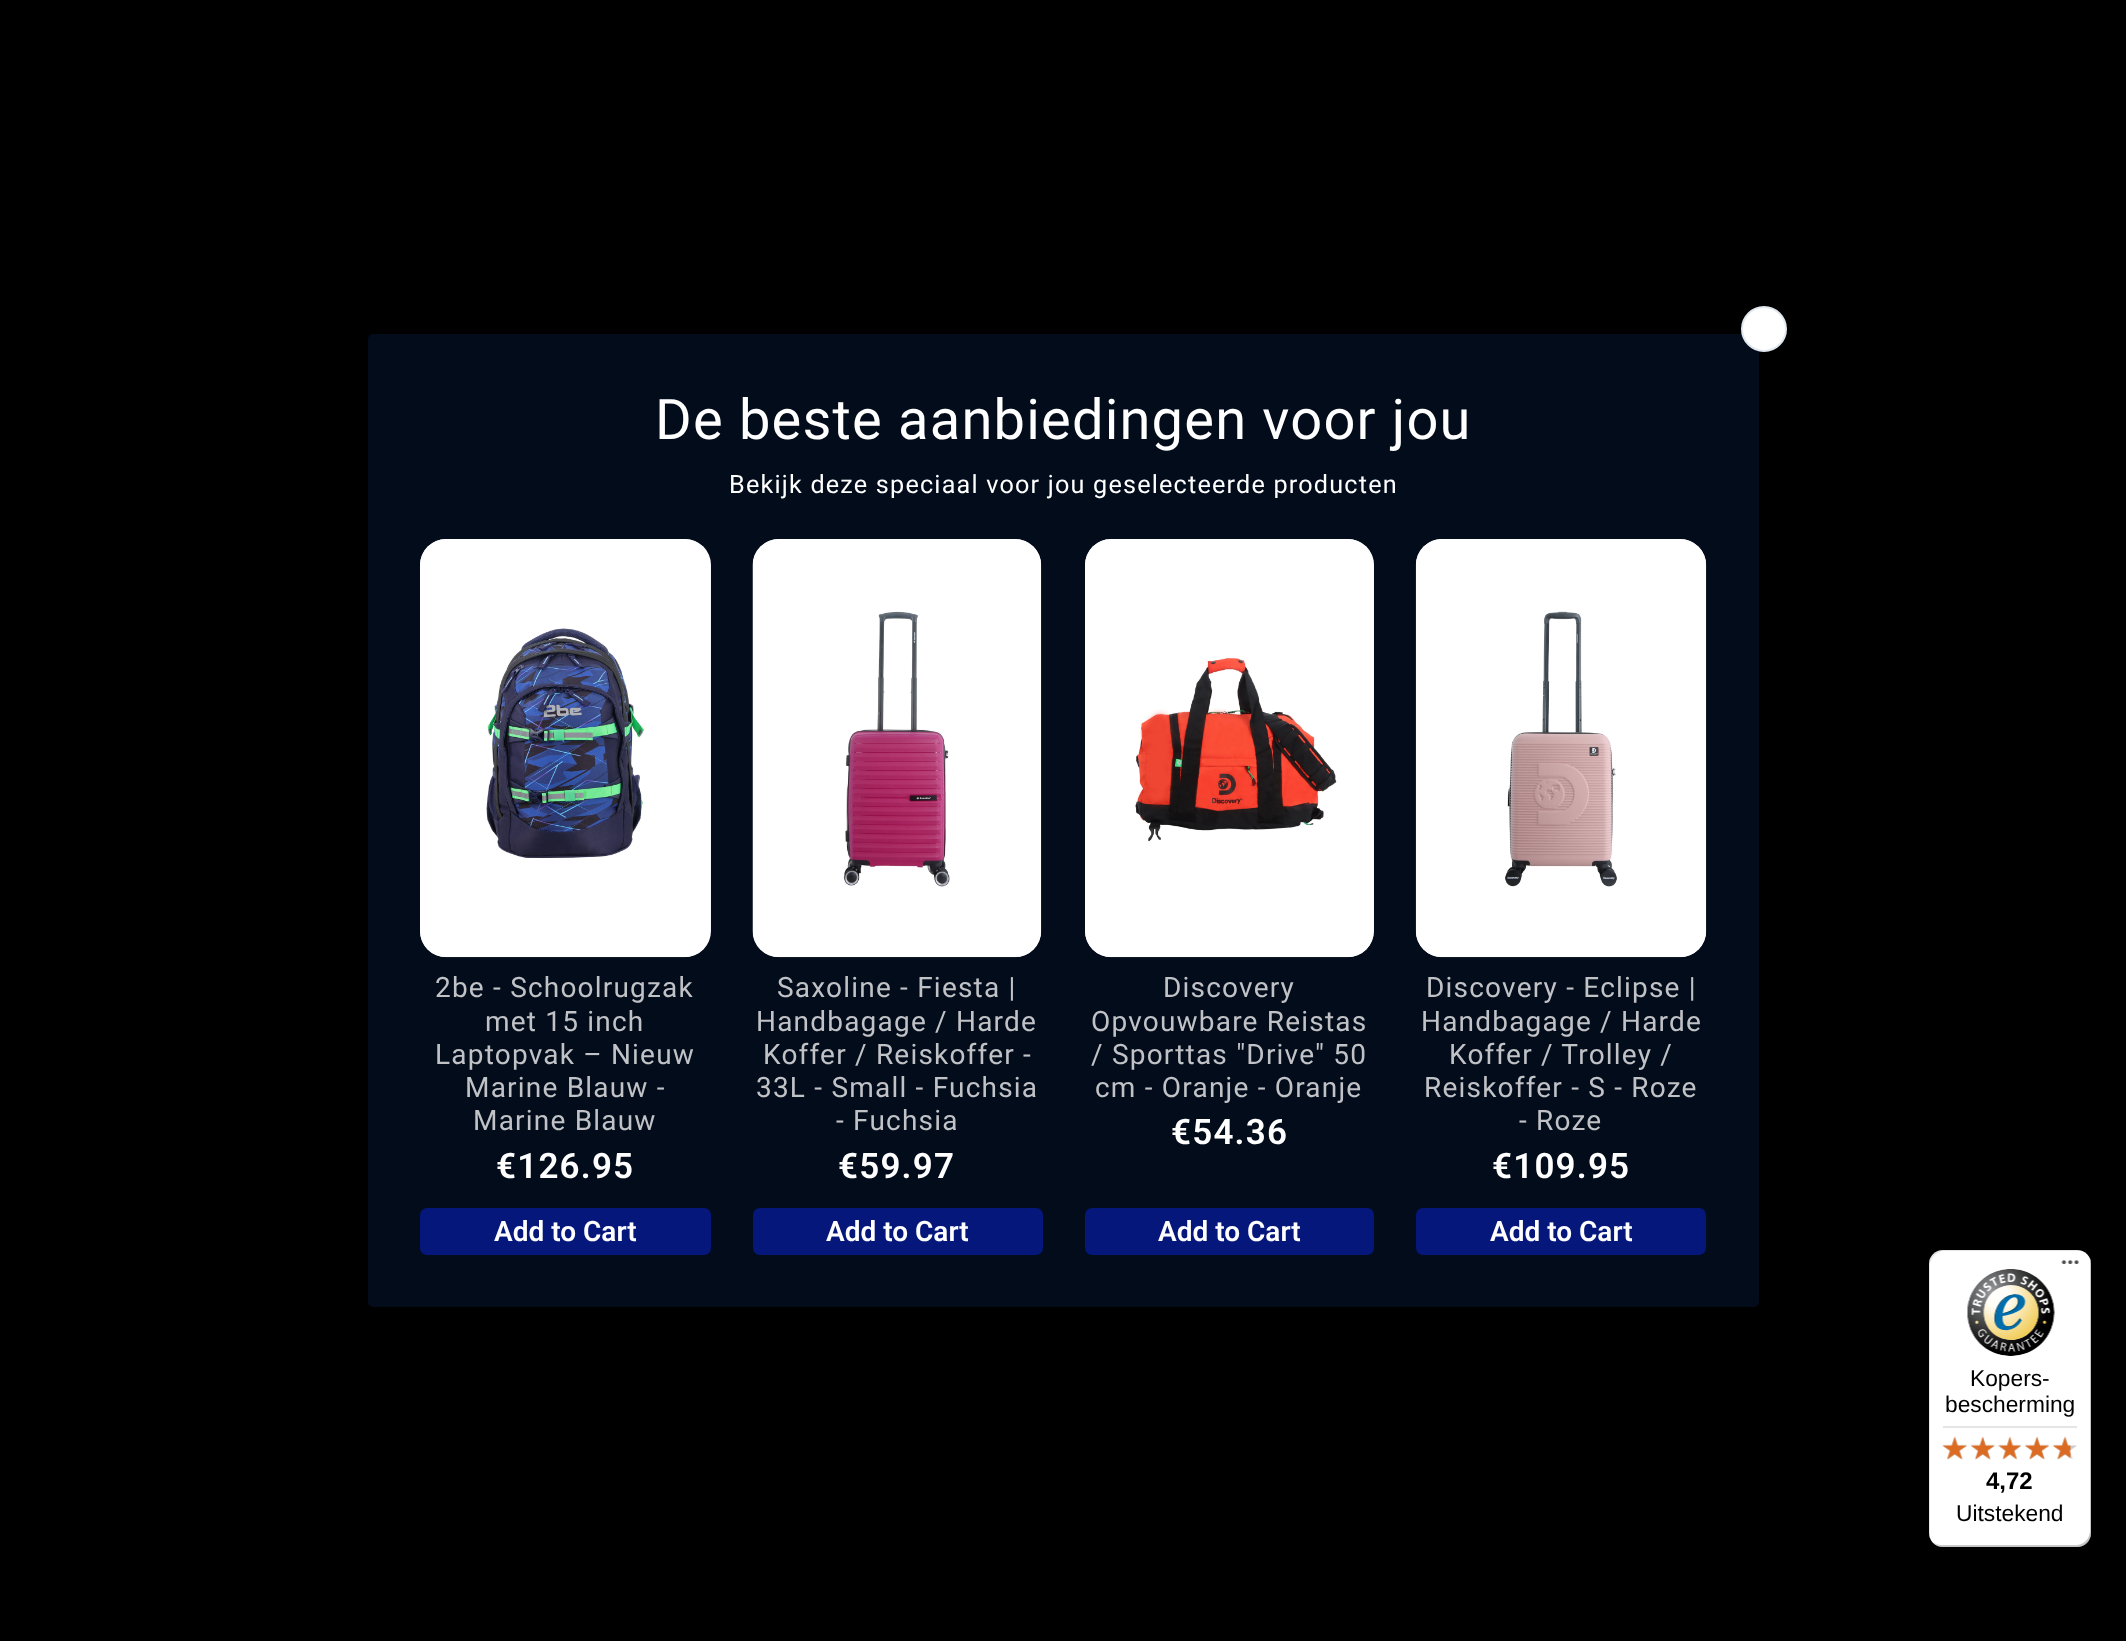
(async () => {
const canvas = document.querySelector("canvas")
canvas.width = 2126
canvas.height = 1641
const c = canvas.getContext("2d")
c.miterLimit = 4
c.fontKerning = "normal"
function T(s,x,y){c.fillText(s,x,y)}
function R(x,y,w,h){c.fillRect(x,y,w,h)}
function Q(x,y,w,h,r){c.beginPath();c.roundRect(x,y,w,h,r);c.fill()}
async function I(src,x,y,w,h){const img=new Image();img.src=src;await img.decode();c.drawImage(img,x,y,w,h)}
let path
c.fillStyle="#000"
R(0,0,2126,1641)
c.fillStyle="#020c1b"
Q(368,334,1391,973,5)
c.fillStyle="#fff"
c.beginPath()
c.arc(1764,329,22,0,7)
c.fill()
c.strokeStyle="#e2e8f0"
c.lineWidth=2
c.stroke()
c.letterSpacing="1.2px"
c.font="56px Roboto"
T("De beste aanbiedingen voor jou",655,439)
c.font="25.2px Roboto"
T("Bekijk deze speciaal voor jou geselecteerde producten",729,493)
c.fillStyle="#f1f5f9"
Q(420,539,291,418,26)
await I("1.png",420,539,291,419)
c.font="28px Roboto"
c.fillStyle="#c0c2c6"
T("2be - Schoolrugzak",435,997)
T("met 15 inch",485,1031)
T("Laptopvak – Nieuw",435,1064)
T("Marine Blauw -",465,1097)
T("Marine Blauw",473,1130)
c.font="600 35px Roboto"
c.fillStyle="#fff"
T("€126.95",496,1178)
c.fillStyle="#05177b"
Q(420,1208,291,47,7)
c.letterSpacing="0px"
c.font="600 28px Roboto"
c.fillStyle="#fff"
T("Add to Cart",494,1241)
c.fillStyle="#f1f5f9"
Q(753,539,288,418,26)
await I("2.png",752,539,290,419)
c.letterSpacing="1.2px"
c.font="28px Roboto"
c.fillStyle="#c0c2c6"
T("Saxoline - Fiesta |",777,997)
T("Handbagage / Harde",756,1031)
T("Koffer / Reiskoffer -",763,1064)
T("33L - Small - Fuchsia",756,1097)
T("- Fuchsia",836,1130)
c.font="600 35px Roboto"
c.fillStyle="#fff"
T("€59.97",838,1178)
c.fillStyle="#05177b"
Q(753,1208,290,47,7)
c.letterSpacing="0px"
c.font="600 28px Roboto"
c.fillStyle="#fff"
T("Add to Cart",826,1241)
c.fillStyle="#f1f5f9"
Q(1085,539,289,418,26)
await I("3.png",1085,539,289,419)
c.letterSpacing="1.2px"
c.font="28px Roboto"
c.fillStyle="#c0c2c6"
T("Discovery",1163,997)
T("Opvouwbare Reistas",1091,1031)
T("/ Sporttas \"Drive\" 50",1091,1064)
T("cm - Oranje - Oranje",1095,1097)
c.font="600 35px Roboto"
c.fillStyle="#fff"
T("€54.36",1171,1144)
c.fillStyle="#05177b"
Q(1085,1208,289,47,7)
c.letterSpacing="0px"
c.font="600 28px Roboto"
c.fillStyle="#fff"
T("Add to Cart",1158,1241)
c.fillStyle="#f1f5f9"
Q(1416,539,290,418,26)
await I("4.png",1415,539,292,419)
c.letterSpacing="1.2px"
c.font="28px Roboto"
c.fillStyle="#c0c2c6"
T("Discovery - Eclipse |",1426,997)
T("Handbagage / Harde",1421,1031)
T("Koffer / Trolley /",1449,1064)
T("Reiskoffer - S - Roze",1424,1097)
T("- Roze",1519,1130)
c.font="600 35px Roboto"
c.fillStyle="#fff"
T("€109.95",1492,1178)
c.fillStyle="#05177b"
Q(1416,1208,290,47,7)
c.letterSpacing="0px"
c.font="600 28px Roboto"
c.fillStyle="#fff"
T("Add to Cart",1490,1241)
Q(1929,1250,162,297,14)
c.fillStyle="#0000001a"
path = new Path2D("M1944 1251h135c2 0 4 0 5 1c-2-1-4-2-7-2h-134c-8 0-14 6-14 14v269c0 3 1 6 3 9c-1-2-2-5-2-7v-270c0-7 7-14 14-14z")
c.fill(path)
c.fillStyle="#00000033"
path = new Path2D("M1933 1542c2 3 6 5 10 5h134c8 0 14-6 14-14v-269c0-3-1-5-2-7c1 1 1 3 1 5v269c0 8-7 14-14 14h-135c-3 0-6-1-8-3z")
c.fill(path)
c.fillStyle="#32323233"
path = new Path2D("M1935 1545c2 1 5 2 8 2h134c8 0 14-6 14-14v-269c0-3-1-6-2-8c1 2 1 4 1 6v270c0 8-6 14-14 14h-135c-2 0-4 0-6-1z")
c.fill(path)
c.fillStyle="#ffffff4d"
path = new Path2D("M1934 1543c2 3 5 4 9 4h134c8 0 14-6 14-14v-269c0-4-1-7-4-9c2 2 3 5 3 8v269c0 8-6 14-14 14h-134c-3 0-6-1-8-3z")
c.fill(path)
await I("5.png",2061,1260,18,4)
await I("6.png",1967,1269,88,87)
c.font="22.75px Liberation Sans"
c.fillStyle="#000"
T("Kopers-",1970,1386)
T("bescherming",1945,1412)
c.fillStyle="#e5e5e5"
R(1943,1426,134,2)
await I("12.png",1942,1437,25,22)
await I("7.png",1942,1436,25,24)
await I("13.png",1971,1437,24,23)
await I("8.png",1970,1436,25,24)
await I("14.png",1998,1437,23,22)
await I("9.png",1998,1436,24,24)
await I("15.png",2025,1437,24,22)
await I("10.png",2024,1436,25,24)
await I("16.png",2053,1437,24,22)
await I("11.png",2052,1436,19,24)
c.font="bold 24px Liberation Sans"
c.fillStyle="#000"
T("4,72",1986,1489)
c.font="22.75px Liberation Sans"
T("Uitstekend",1956,1521)
})()
